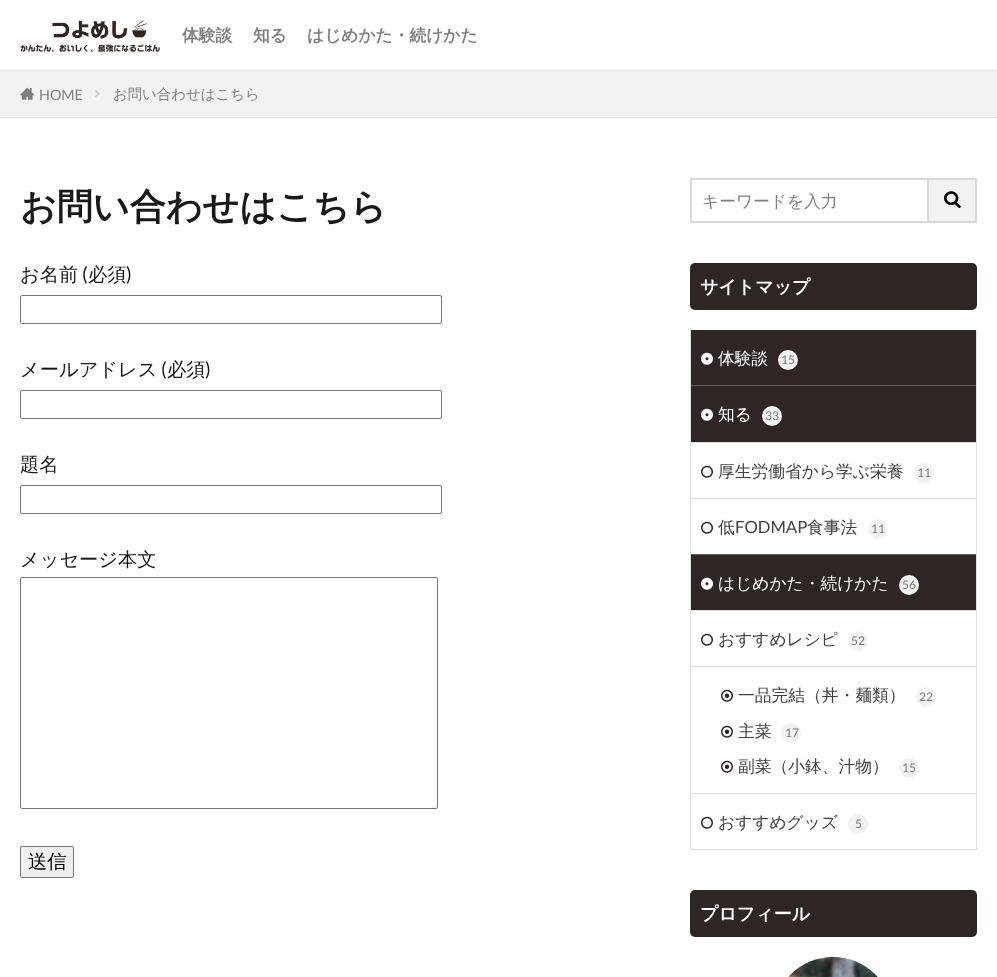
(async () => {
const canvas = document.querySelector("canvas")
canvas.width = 997
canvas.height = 977
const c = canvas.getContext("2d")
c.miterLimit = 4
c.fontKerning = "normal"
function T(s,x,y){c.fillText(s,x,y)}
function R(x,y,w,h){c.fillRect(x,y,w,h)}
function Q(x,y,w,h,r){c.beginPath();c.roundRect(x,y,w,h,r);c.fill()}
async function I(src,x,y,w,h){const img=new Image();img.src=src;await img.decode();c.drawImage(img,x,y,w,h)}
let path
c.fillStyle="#fff"
R(0,0,997,977)
c.fillStyle="#e6e6e6"
R(0,70,997,1)
await I("1.png",20,20,140,32)
c.font="bold 16.75px WenQuanYi Zen Hei"
c.fillStyle="#7f7f7f"
T("体験談",182,41)
T("知る",253,41)
T("はじめかた・続けかた",307,41)
c.fillStyle="#f2f2f2"
R(0,71,997,46)
c.fillStyle="#e6e6e6"
R(0,117,997,1)
await I("2.png",20,87,15,13)
c.font="14.4px Lato"
c.fillStyle="#7f7f7f"
T("HOME",39,100)
c.fillStyle="#bfbfbf"
path = new Path2D("M96 90l3.5 3.5l-1 1l-3.5-3.5z")
c.fill(path)
path = new Path2D("M98.5 93l1 .5l-3.5 3.5l-1-.5z")
c.fill(path)
c.font="500 14.4px WenQuanYi Zen Hei"
c.fillStyle="#7f7f7f"
T("お問い合わせはこちら",113,99)
c.font="bold 36px WenQuanYi Zen Hei"
c.fillStyle="#191919"
T("お問い合わせはこちら",20,219)
c.font="500 19.25px WenQuanYi Zen Hei"
T("お名前",20,281)
c.font="19.25px Lato"
T("(",82,281)
c.font="500 19.25px WenQuanYi Zen Hei"
T("必須",88,281)
c.font="19.25px Lato"
T(")",126,281)
c.beginPath()
c.roundRect(20.5,295.5,421,28,1.5)
c.strokeStyle="#767676"
c.stroke()
c.font="500 19.25px WenQuanYi Zen Hei"
T("メールアドレス",20,376)
c.font="19.25px Lato"
T("(",161,376)
c.font="500 19.25px WenQuanYi Zen Hei"
T("必須",167,376)
c.font="19.25px Lato"
T(")",205,376)
c.beginPath()
c.roundRect(20.5,390.5,421,28,1.5)
c.stroke()
c.font="500 19.25px WenQuanYi Zen Hei"
T("題名",20,471)
c.beginPath()
c.roundRect(20.5,485.5,421,28,1.5)
c.stroke()
T("メッセージ本文",20,566)
c.beginPath()
c.roundRect(20.5,577.5,417,231,1.5)
c.stroke()
c.fillStyle="#efefef"
c.beginPath()
c.roundRect(20.5,846.5,53,31,1.5)
c.fill()
c.stroke()
c.fillStyle="#000"
T("送信",28,868)
c.strokeStyle="#d8d8d8"
c.lineWidth=2
c.strokeRect(691,179,237,43)
c.font="500 16.75px WenQuanYi Zen Hei"
c.fillStyle="#7f7f7f"
T("キーワードを入力",702,207)
c.fillStyle="#f2f2f2"
R(929,180,46,41)
c.fillStyle="#d8d8d8"
R(929,178,48,2)
R(975,178,2,45)
R(929,221,48,2)
await I("3.png",944,191,17,17)
c.fillStyle="#2d2624"
Q(690,263,287,47,5)
c.font="bold 18px WenQuanYi Zen Hei"
c.fillStyle="#fff"
T("サイトマップ",700,293)
c.fillStyle="#e0dede"
path = new Path2D("M977 330v520l-1-1v-519z")
c.fill(path)
c.fillStyle="#2d262426"
path = new Path2D("M977 850h-287l1-1h285z")
c.fill(path)
path = new Path2D("M690 850v-520h1v519z")
c.fill(path)
c.fillStyle="#2d2624"
R(691,330,285,55)
await I("4.png",701,352,12,13)
c.font="500 16.75px WenQuanYi Zen Hei"
c.fillStyle="#fff"
T("体験談",718,364)
c.fillStyle="#f2f2f2"
c.beginPath()
c.arc(788,360,10,0,7)
c.fill()
c.font="12px Lato"
c.fillStyle="#797979"
T("15",781,364)
c.fillStyle="#625c5b"
R(691,385,285,1)
c.fillStyle="#2d2624"
R(691,386,285,56)
await I("4.png",701,408,12,13)
c.font="500 16.75px WenQuanYi Zen Hei"
c.fillStyle="#fff"
T("知る",718,420)
c.fillStyle="#f2f2f2"
c.beginPath()
c.arc(772,416,10,0,7)
c.fill()
c.font="12px Lato"
c.fillStyle="#797979"
T("33",765,420)
c.fillStyle="#e0dede"
R(691,442,285,1)
await I("5.png",701,465,12,13)
c.font="500 16.75px WenQuanYi Zen Hei"
c.fillStyle="#404040"
T("厚生労働省から学ぶ栄養",718,477)
c.fillStyle="#f2f2f2"
c.beginPath()
c.arc(924,473,10,0,7)
c.fill()
c.font="12px Lato"
c.fillStyle="#797979"
T("11",917,477)
c.fillStyle="#e0dede"
R(691,498,285,1)
await I("5.png",701,521,12,13)
c.font="500 16.75px WenQuanYi Zen Hei"
c.fillStyle="#404040"
T("低",718,533)
c.font="16.75px Lato"
T("FODMAP",735,533)
c.font="500 16.75px WenQuanYi Zen Hei"
T("食事法",807,533)
c.fillStyle="#f2f2f2"
c.beginPath()
c.arc(878,529,10,0,7)
c.fill()
c.font="12px Lato"
c.fillStyle="#797979"
T("11",871,533)
c.fillStyle="#625c5b"
R(691,554,285,1)
c.fillStyle="#2d2624"
R(691,555,285,55)
await I("4.png",701,577,12,13)
c.font="500 16.75px WenQuanYi Zen Hei"
c.fillStyle="#fff"
T("はじめかた・続けかた",718,589)
c.fillStyle="#f2f2f2"
c.beginPath()
c.arc(909,585,10,0,7)
c.fill()
c.font="12px Lato"
c.fillStyle="#797979"
T("56",902,589)
c.fillStyle="#e0dede"
R(691,610,285,1)
await I("5.png",701,633,12,13)
c.font="500 16.75px WenQuanYi Zen Hei"
c.fillStyle="#404040"
T("おすすめレシピ",718,645)
c.fillStyle="#f2f2f2"
c.beginPath()
c.arc(858,641,10,0,7)
c.fill()
c.font="12px Lato"
c.fillStyle="#797979"
T("52",851,645)
c.fillStyle="#e0dede"
R(691,666,285,1)
await I("6.png",721,689,12,13)
c.font="500 16.75px WenQuanYi Zen Hei"
c.fillStyle="#404040"
T("一品完結（丼・麺類）",738,701)
c.fillStyle="#f2f2f2"
c.beginPath()
c.arc(926,697,10,0,7)
c.fill()
c.font="12px Lato"
c.fillStyle="#797979"
T("22",919,701)
await I("6.png",721,725,12,13)
c.font="500 16.75px WenQuanYi Zen Hei"
c.fillStyle="#404040"
T("主菜",738,737)
c.fillStyle="#f2f2f2"
c.beginPath()
c.arc(791,733,10,0,7)
c.fill()
c.font="12px Lato"
c.fillStyle="#797979"
T("17",785,737)
await I("6.png",721,760,12,13)
c.font="500 16.75px WenQuanYi Zen Hei"
c.fillStyle="#404040"
T("副菜（小鉢、汁物）",738,772)
c.fillStyle="#f2f2f2"
c.beginPath()
c.arc(909,768,10,0,7)
c.fill()
c.font="12px Lato"
c.fillStyle="#797979"
T("15",902,772)
c.fillStyle="#e0dede"
R(691,793,285,1)
await I("5.png",701,816,12,13)
c.font="500 16.75px WenQuanYi Zen Hei"
c.fillStyle="#404040"
T("おすすめグッズ",718,828)
c.fillStyle="#f2f2f2"
c.beginPath()
c.arc(858,824,10,0,7)
c.fill()
c.font="12px Lato"
c.fillStyle="#797979"
T("5",855,828)
c.fillStyle="#2d2624"
Q(690,890,287,47,5)
c.font="bold 18px WenQuanYi Zen Hei"
c.fillStyle="#fff"
T("プロフィール",700,920)
await I("7.png",788,957,90,20)
})()
